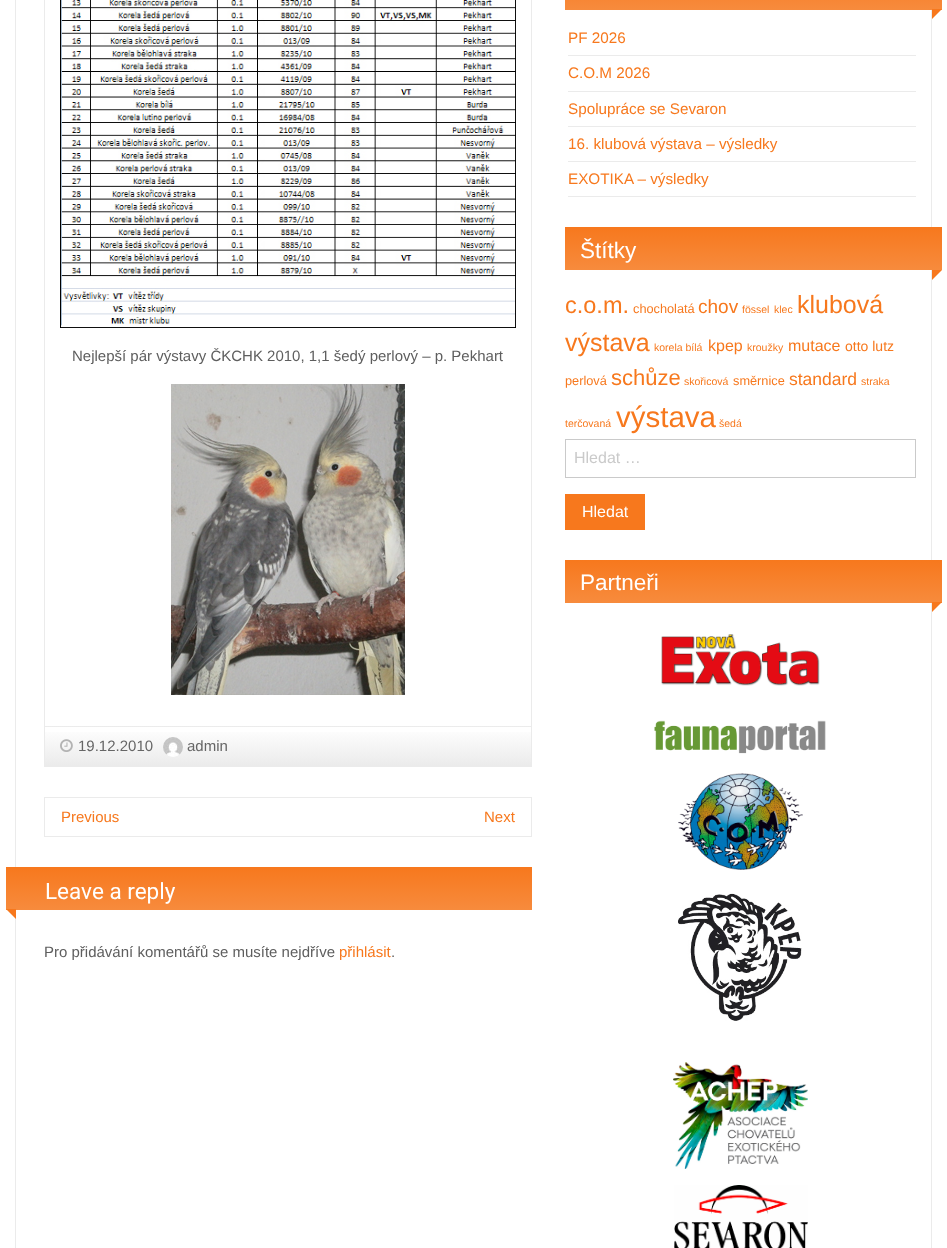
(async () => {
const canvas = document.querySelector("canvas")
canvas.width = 947
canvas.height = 1248
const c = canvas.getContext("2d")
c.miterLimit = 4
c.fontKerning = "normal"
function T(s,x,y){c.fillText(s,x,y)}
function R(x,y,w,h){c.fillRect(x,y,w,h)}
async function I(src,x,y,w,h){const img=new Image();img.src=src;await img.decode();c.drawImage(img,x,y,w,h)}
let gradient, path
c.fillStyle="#fff"
R(0,0,947,1248)
c.strokeStyle="#ebebeb"
c.strokeRect(15.5,-.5,916,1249)
c.strokeRect(44.5,-.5,487,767)
await I("1.png",60,0,456,328)
c.font="15px Liberation Sans"
c.fillStyle="#5e5e5e"
T("Nejlepší pár výstavy ČKCHK 2010, 1,1 šedý perlový – p. Pekhart",72,361)
await I("2.png",171,384,234,311)
gradient = c.createLinearGradient(45,688,45,727)
gradient.addColorStop(0,"#fff")
gradient.addColorStop(1,"#ebebeb")
c.fillStyle = gradient
R(45,726,486,1)
gradient = c.createLinearGradient(45,727,45,766)
gradient.addColorStop(0,"#fff")
gradient.addColorStop(1,"#ebebeb")
c.fillStyle = gradient
R(45,732,486,34)
await I("3.png",60,739,13,13)
c.fillStyle="#666"
T("19.12.2010",78,751)
await I("4.png",163,737,20,20)
T("admin",187,751)
c.strokeRect(44.5,797.5,487,39)
c.fillStyle="#f7781d"
T("Previous",61,822)
T("Next",484,822)
gradient = c.createLinearGradient(6,867,6,910)
gradient.addColorStop(0,"#f7781d")
gradient.addColorStop(1,"#f78b3d")
c.fillStyle = gradient
R(6,867,526,43)
c.font="22.5px Roboto"
c.fillStyle="#fff"
T("Leave a reply",45,899)
c.fillStyle="#f7781d"
path = new Path2D("M6 909h10v10z")
c.fill(path)
c.font="15px Liberation Sans"
c.fillStyle="#5e5e5e"
T("Pro přidávání komentářů se musíte nejdříve",44,957)
c.fillStyle="#f7781d"
T("přihlásit",339,957)
c.fillStyle="#5e5e5e"
T(".",391,957)
gradient = c.createLinearGradient(565,-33,565,10)
gradient.addColorStop(0,"#f7781d")
gradient.addColorStop(1,"#f78b3d")
c.fillStyle = gradient
R(565,0,377,10)
c.fillStyle="#f7781d"
path = new Path2D("M932 9h10l-10 10z")
c.fill(path)
c.fillStyle="#ebebeb"
R(568,55,348,1)
c.font="15.25px Liberation Sans"
c.fillStyle="#f7781d"
T("PF 2026",568,43)
c.fillStyle="#ebebeb"
R(568,91,348,1)
c.fillStyle="#f7781d"
T("C.O.M 2026",568,78)
c.fillStyle="#ebebeb"
R(568,126,348,1)
c.fillStyle="#f7781d"
T("Spolupráce se Sevaron",568,114)
c.fillStyle="#ebebeb"
R(568,161,348,1)
c.fillStyle="#f7781d"
T("16. klubová výstava – výsledky",568,149)
c.fillStyle="#ebebeb"
R(568,196,348,1)
c.fillStyle="#f7781d"
T("EXOTIKA – výsledky",568,184)
gradient = c.createLinearGradient(565,227,565,270)
gradient.addColorStop(0,"#f7781d")
gradient.addColorStop(1,"#f78b3d")
c.fillStyle = gradient
R(565,227,377,43)
c.font="22.5px Liberation Sans"
c.fillStyle="#fff"
T("Štítky",580,258)
c.fillStyle="#f7781d"
path = new Path2D("M932 270h10l-10 10z")
c.fill(path)
c.font="23.5px Liberation Sans"
T("c.o.m.",565,313)
c.font="12.75px Liberation Sans"
T("chocholatá",633,313)
c.font="19px Liberation Sans"
T("chov",698,313)
c.font="10.5px Liberation Sans"
T("fössel",742,313)
T("klec",774,313)
c.font="25px Liberation Sans"
T("klubová",797,313)
T("výstava",565,351)
c.font="10.5px Liberation Sans"
T("korela bílá",654,351)
c.font="16px Liberation Sans"
T("kpep",708,351)
c.font="10.5px Liberation Sans"
T("kroužky",747,351)
c.font="16px Liberation Sans"
T("mutace",788,351)
c.font="14px Liberation Sans"
T("otto lutz",845,351)
c.font="12.75px Liberation Sans"
T("perlová",565,385)
c.font="22px Liberation Sans"
T("schůze",611,385)
c.font="10.5px Liberation Sans"
T("skořicová",684,385)
c.font="12.75px Liberation Sans"
T("směrnice",733,385)
c.font="17.5px Liberation Sans"
T("standard",789,385)
c.font="10.5px Liberation Sans"
T("straka",861,385)
T("terčovaná",565,427)
c.font="29.5px Liberation Sans"
T("výstava",616,427)
c.font="10.5px Liberation Sans"
T("šedá",719,427)
c.strokeStyle="#cacaca"
c.strokeRect(565.5,439.5,350,38)
c.font="16px Liberation Sans"
c.fillStyle="#cacaca"
T("Hledat …",574,463)
c.fillStyle="#f7781d"
R(565,494,80,36)
c.fillStyle="#fff"
T("Hledat",582,517)
gradient = c.createLinearGradient(565,560,565,603)
gradient.addColorStop(0,"#f7781d")
gradient.addColorStop(1,"#f78b3d")
c.fillStyle = gradient
R(565,560,377,43)
c.font="22.5px Liberation Sans"
c.fillStyle="#fff"
T("Partneři",580,590)
c.fillStyle="#f7781d"
path = new Path2D("M932 602h10l-10 10z")
c.fill(path)
await I("5.png",661,634,159,52)
await I("6.png",654,720,172,34)
await I("7.png",678,773,125,97)
await I("8.png",678,893,124,128)
await I("9.png",673,1062,135,107)
await I("10.png",674,1185,134,63)
})()
